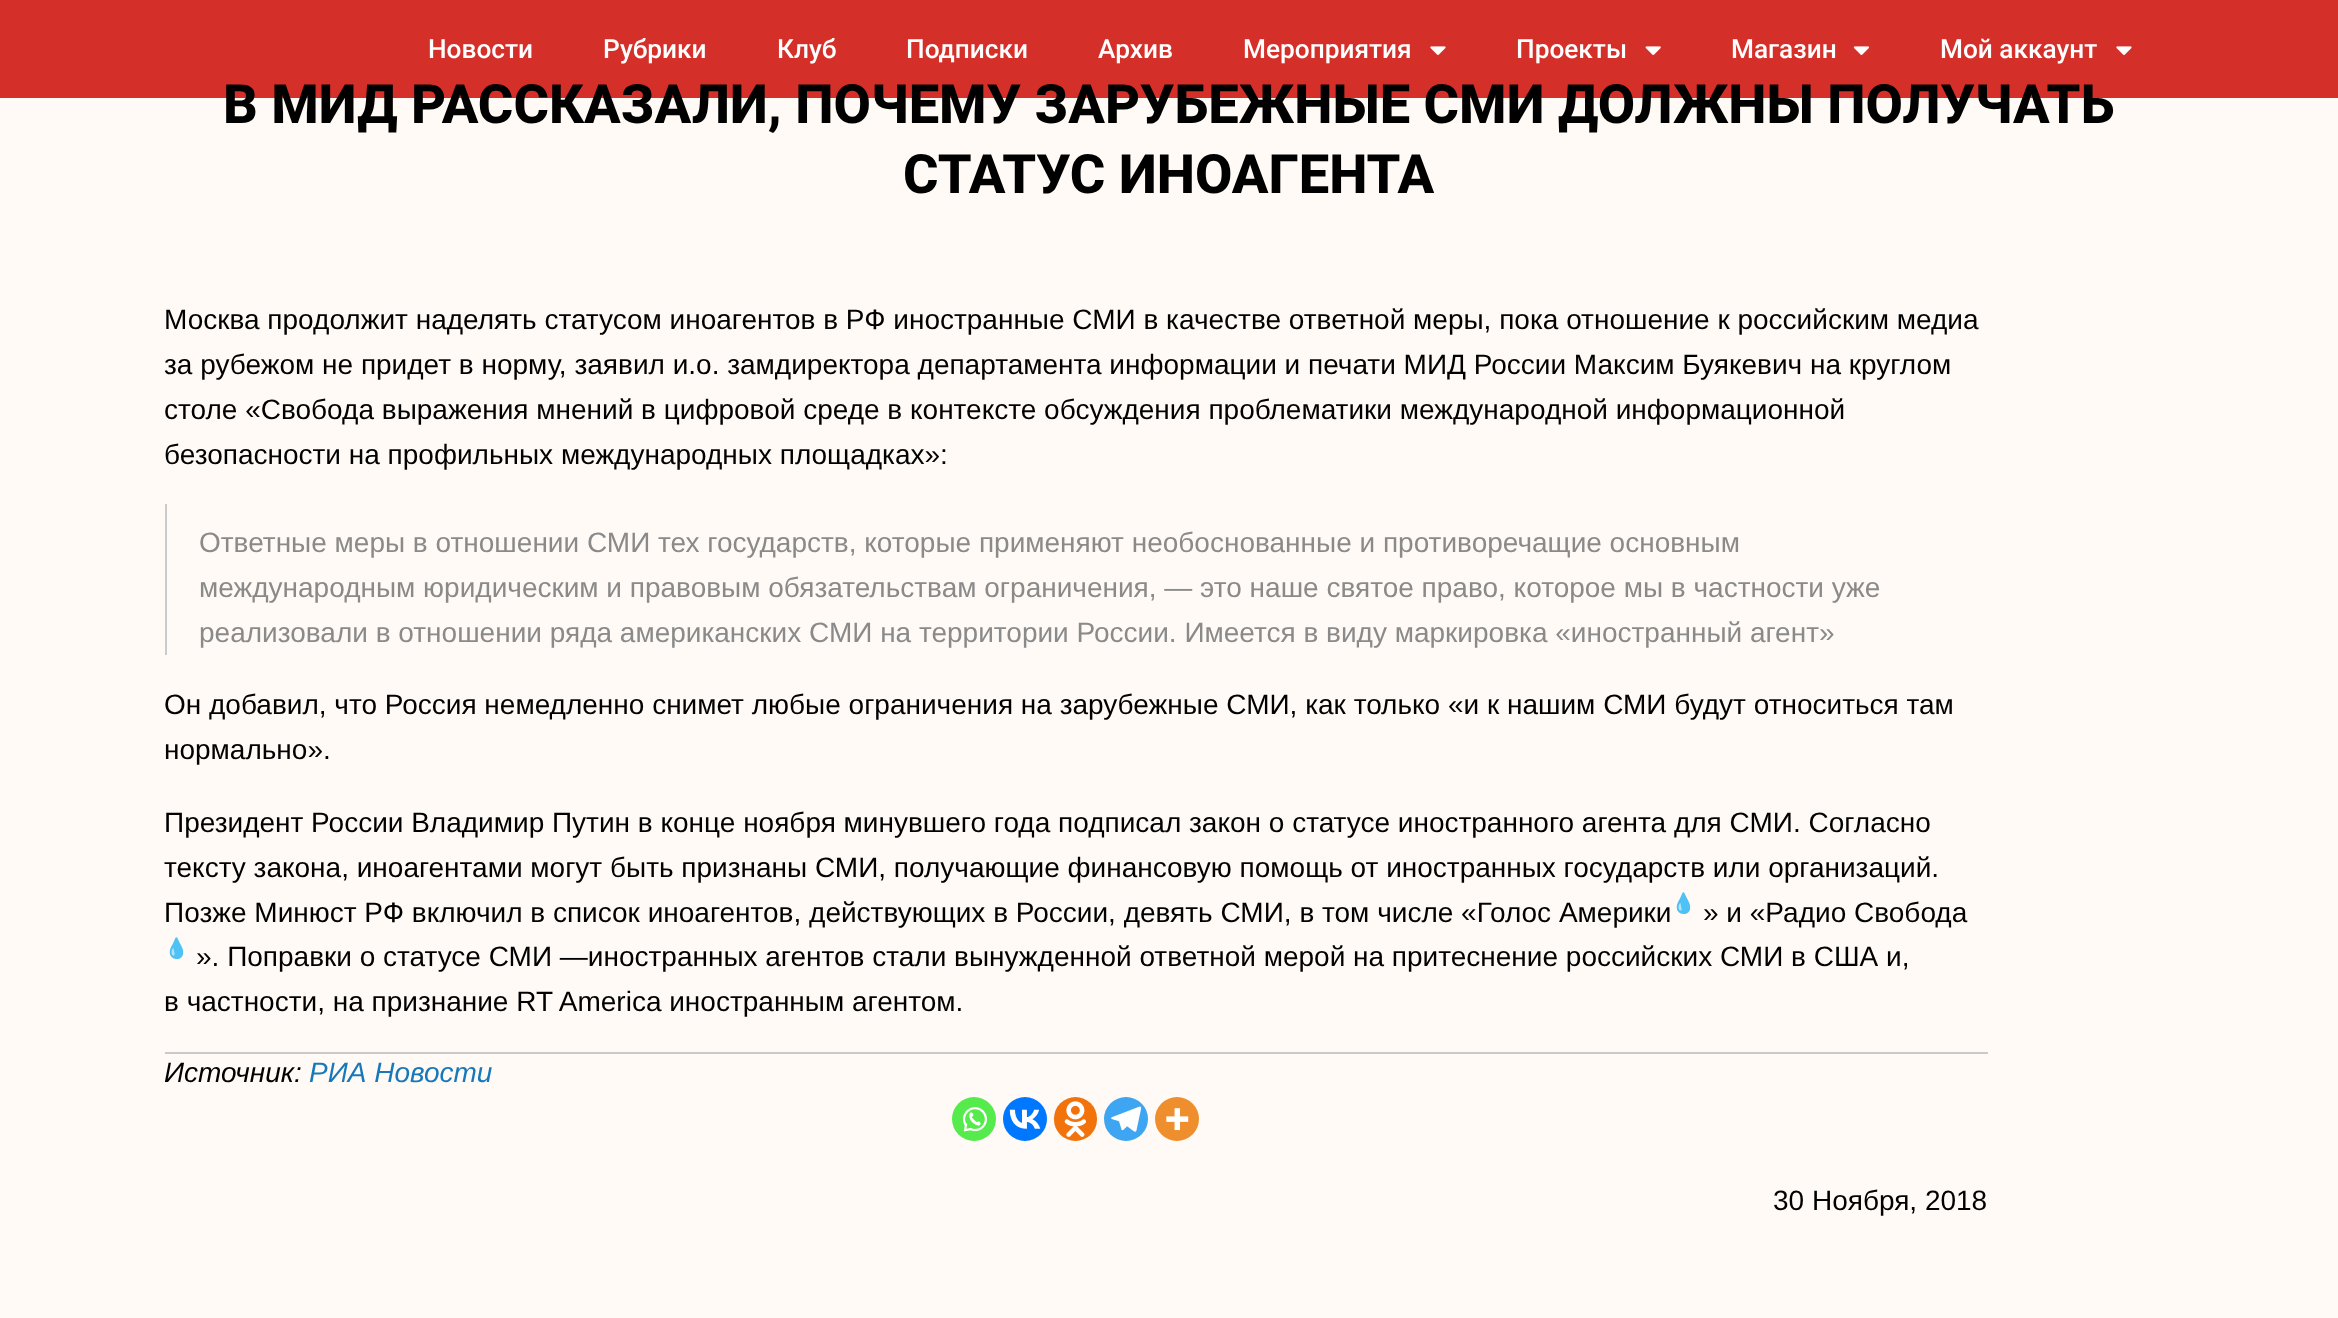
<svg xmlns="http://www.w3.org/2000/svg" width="2338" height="1318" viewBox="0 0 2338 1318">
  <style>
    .t1 { font: 500 26.25px Roboto; fill: #fff; }
    .t2 { font: 800 54.25px Roboto; fill: #000; }
    .t3 { font: 28px Liberation Sans; fill: #000; }
    .t4 { font: 28px Liberation Sans; fill: #8a8a8a; }
    .t5 { font: 20px Noto Color Emoji; fill: #666462; }
    .t6 { font: italic 28px Liberation Sans; fill: #000; }
    .t7 { font: italic 28px Liberation Sans; fill: #1779ba; }
  </style>
  <rect width="100%" height="100%" fill="#fffaf5"/>
  <rect x="0" y="0" width="2338" height="98" fill="#d52f29"/>
  <text x="428" y="58" class="t1">Новости</text>
  <text x="603" y="58" class="t1">Рубрики</text>
  <text x="777" y="58" class="t1">Клуб</text>
  <text x="906" y="58" class="t1">Подписки</text>
  <text x="1098" y="58" class="t1">Архив</text>
  <text x="1243" y="58" class="t1">Мероприятия</text>
  <image x="1430" y="46" width="16" height="9" href="images/1.png"/>
  <text x="1516" y="58" class="t1">Проекты</text>
  <image x="1645" y="46" width="16" height="9" href="images/2.png"/>
  <text x="1731" y="58" class="t1">Магазин</text>
  <image x="1853" y="46" width="16" height="9" href="images/3.png"/>
  <text x="1940" y="58" class="t1">Мой аккаунт</text>
  <image x="2116" y="46" width="16" height="9" href="images/1.png"/>
  <text x="223" y="123" class="t2">В МИД РАССКАЗАЛИ, ПОЧЕМУ ЗАРУБЕЖНЫЕ СМИ ДОЛЖНЫ ПОЛУЧАТЬ</text>
  <text x="903" y="193" class="t2">СТАТУС ИНОАГЕНТА</text>
  <text x="164" y="329" class="t3">Москва продолжит наделять статусом иноагентов в РФ иностранные СМИ в качестве ответной меры, пока отношение к российским медиа</text>
  <text x="164" y="374" class="t3">за рубежом не придет в норму, заявил и.о. замдиректора департамента информации и печати МИД России Максим Буякевич на круглом</text>
  <text x="164" y="419" class="t3">столе «Свобода выражения мнений в цифровой среде в контексте обсуждения проблематики международной информационной</text>
  <text x="164" y="464" class="t3">безопасности на профильных международных площадках»:</text>
  <rect x="165" y="504" width="2" height="151" fill="#cacaca"/>
  <text x="199" y="552" class="t4">Ответные меры в отношении СМИ тех государств, которые применяют необоснованные и противоречащие основным</text>
  <text x="199" y="597" class="t4">международным юридическим и правовым обязательствам ограничения, — это наше святое право, которое мы в частности уже</text>
  <text x="199" y="642" class="t4">реализовали в отношении ряда американских СМИ на территории России. Имеется в виду маркировка «иностранный агент»</text>
  <text x="164" y="714" class="t3">Он добавил, что Россия немедленно снимет любые ограничения на зарубежные СМИ, как только «и к нашим СМИ будут относиться там</text>
  <text x="164" y="759" class="t3">нормально».</text>
  <text x="164" y="832" class="t3">Президент России Владимир Путин в конце ноября минувшего года подписал закон о статусе иностранного агента для СМИ. Согласно</text>
  <text x="164" y="877" class="t3">тексту закона, иноагентами могут быть признаны СМИ, получающие финансовую помощь от иностранных государств или организаций.</text>
  <text x="1671" y="910" class="t5">💧</text>
  <text x="1703" y="922" class="t3">» и «Радио Свобода</text>
  <text x="164" y="955" class="t5">💧</text>
  <text x="196" y="966" class="t3">». Поправки о статусе СМИ —иностранных агентов стали вынужденной ответной мерой на притеснение российских СМИ в США и,</text>
  <text x="164" y="1011" class="t3">в частности, на признание RT America иностранным агентом.</text>
  <text x="164" y="922" class="t3">Позже Минюст РФ включил в список иноагентов, действующих в России, девять СМИ, в том числе «Голос Америки</text>
  <rect x="165" y="1052" width="1823" height="2" fill="#cacaca"/>
  <text x="164" y="1082" class="t6">Источник:</text>
  <text x="309" y="1082" class="t7">РИА Новости</text>
  <circle cx="974" cy="1119" r="22" fill="#55eb4c"/>
  <image x="962" y="1107" width="25" height="25" href="images/4.png"/>
  <circle cx="1025" cy="1119" r="22" fill="#07f"/>
  <image x="1009" y="1109" width="32" height="20" href="images/5.png"/>
  <rect x="1054" y="1097" width="43" height="44" rx="21.5" fill="#f2720c"/>
  <image x="1064" y="1101" width="22" height="36" href="images/6.png"/>
  <circle cx="1126" cy="1119" r="22" fill="#3da5f1"/>
  <image x="1111" y="1106" width="31" height="26" href="images/7.png"/>
  <circle cx="1177" cy="1119" r="22" fill="#ee8e2d"/>
  <image x="1166" y="1108" width="23" height="23" href="images/8.png"/>
  <text x="1773" y="1210" class="t3">30 Ноября, 2018</text>
</svg>
